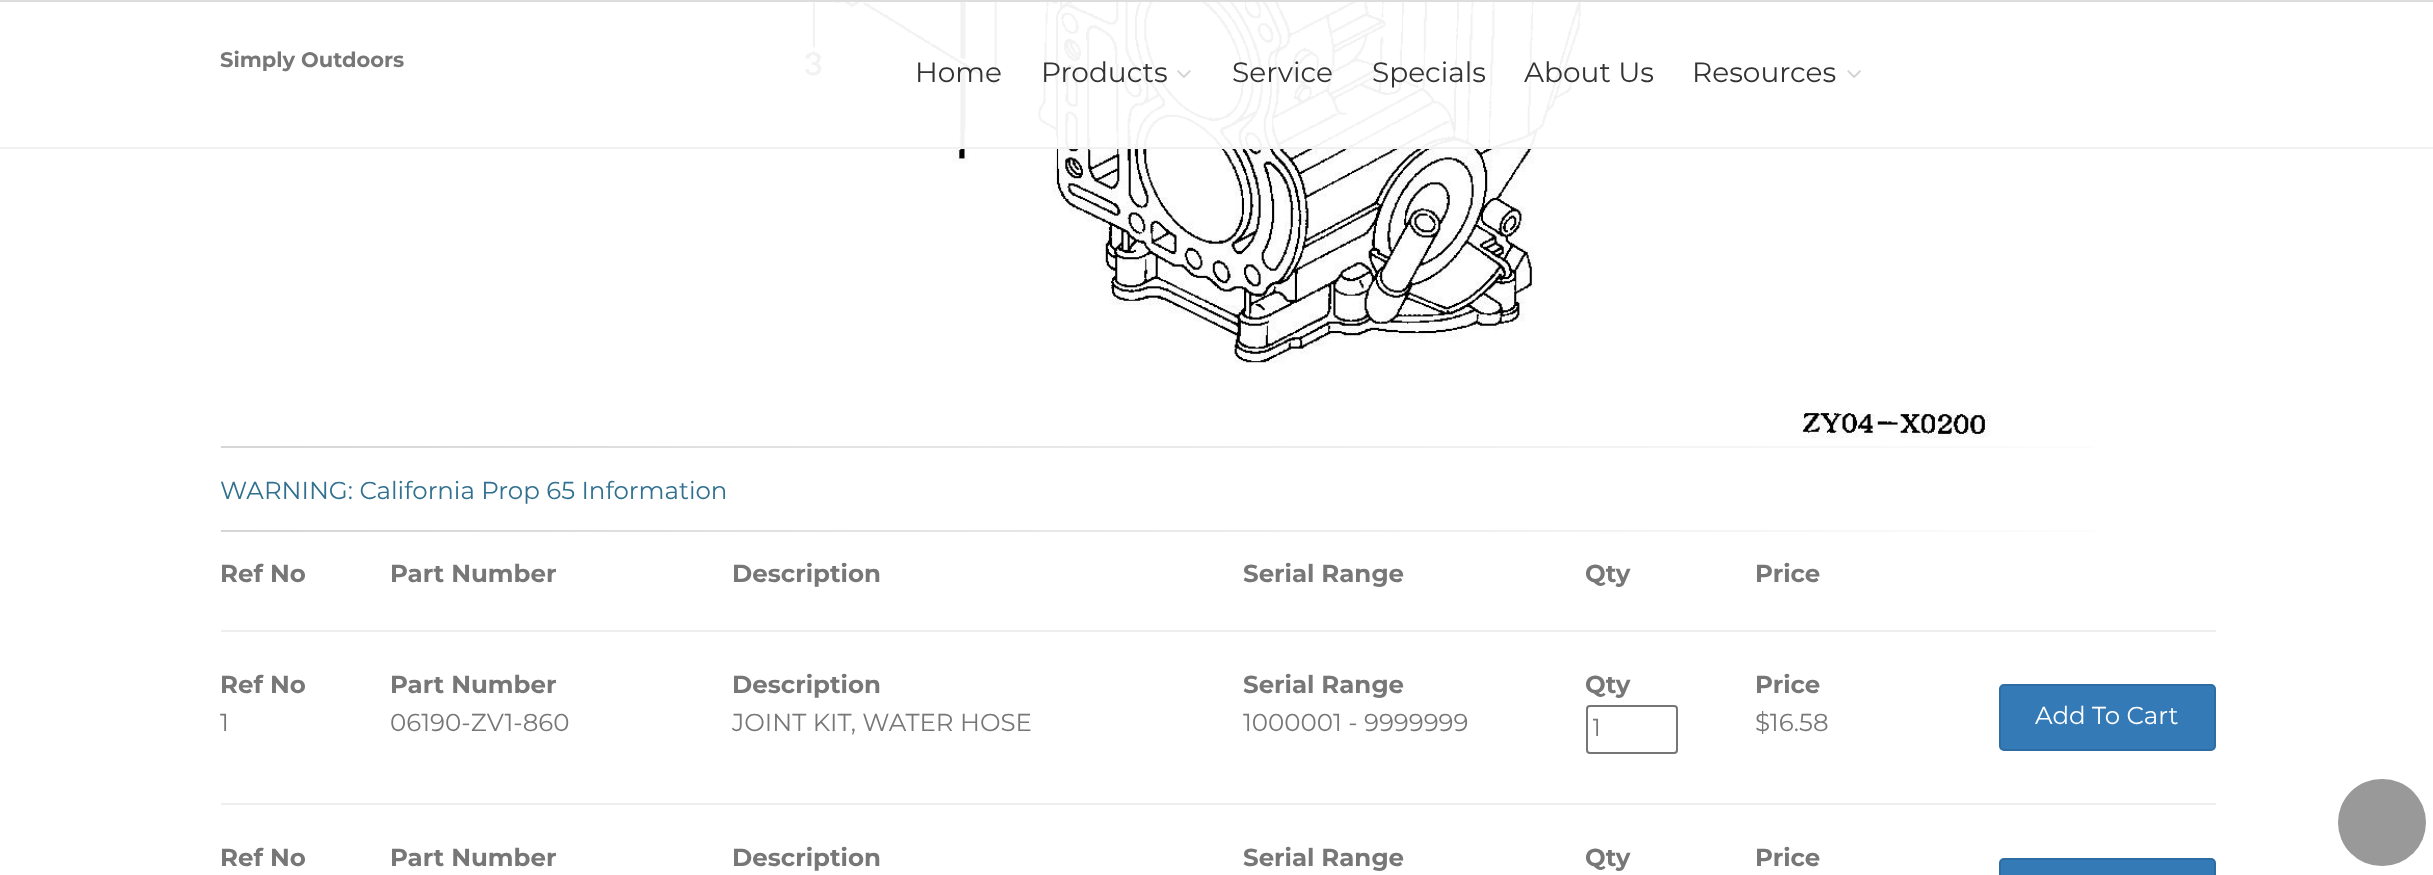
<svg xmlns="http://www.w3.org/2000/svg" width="2433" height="875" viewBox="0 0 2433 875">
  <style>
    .t1 { font: bold 21px Montserrat; fill: #777; }
    .t2 { font: 28px Montserrat; fill: #333; }
    .t3 { font: 24.5px Montserrat; fill: #31708f; }
    .t4 { font: bold 24.5px Montserrat; fill: #777; }
    .t5 { font: 24.5px Montserrat; fill: #777; }
    .t6 { font: 24.5px Montserrat; fill: #fff; }
  </style>
  <defs>
    <linearGradient id="g1" gradientUnits="userSpaceOnUse" x1="221" y1="447" x2="2216" y2="447"><stop offset="0" stop-color="#d6d6d6"/><stop offset="1" stop-color="#fff"/></linearGradient>
    <linearGradient id="g2" gradientUnits="userSpaceOnUse" x1="221" y1="531" x2="2216" y2="531"><stop offset="0" stop-color="#d6d6d6"/><stop offset="1" stop-color="#fff"/></linearGradient>
    <clipPath id="clip1"><rect x="1593" y="711" width="78" height="38"/></clipPath>
  </defs>
  <rect width="100%" height="100%" fill="#fff"/>
  <image x="802" y="2" width="1189" height="436" href="images/3.png"/>
  <rect x="802" y="2" width="782" height="145" fill="#fffffff2"/>
  <rect x="0" y="0" width="2433" height="2" fill="#ddd"/>
  <rect x="0" y="147" width="2433" height="2" fill="#f1f1f1"/>
  <text x="220" y="67" class="t1">Simply Outdoors</text>
  <text x="915" y="82" class="t2">Home</text>
  <text x="1041" y="82" class="t2">Products</text>
  <image x="1177" y="70" width="14" height="8" href="images/1.png"/>
  <text x="1232" y="82" class="t2">Service</text>
  <text x="1372" y="82" class="t2">Specials</text>
  <text x="1524" y="82" class="t2">About Us</text>
  <text x="1692" y="82" class="t2">Resources</text>
  <image x="1847" y="70" width="14" height="8" href="images/2.png"/>
  <rect x="221" y="446" width="1873" height="2" fill="url(#g1)"/>
  <text x="220" y="499" class="t3">WARNING: California Prop 65 Information</text>
  <rect x="221" y="530" width="1873" height="2" fill="url(#g2)"/>
  <text x="220" y="582" class="t4">Ref No</text>
  <text x="390" y="582" class="t4">Part Number</text>
  <text x="732" y="582" class="t4">Description</text>
  <text x="1243" y="582" class="t4">Serial Range</text>
  <text x="1585" y="582" class="t4">Qty</text>
  <text x="1755" y="582" class="t4">Price</text>
  <rect x="221" y="630" width="1995" height="2" fill="#eee"/>
  <text x="220" y="693" class="t4">Ref No</text>
  <text x="220" y="731" class="t5">1</text>
  <text x="390" y="693" class="t4">Part Number</text>
  <text x="390" y="731" class="t5">06190-ZV1-860</text>
  <text x="732" y="693" class="t4">Description</text>
  <text x="732" y="731" class="t5">JOINT KIT, WATER HOSE</text>
  <text x="1243" y="693" class="t4">Serial Range</text>
  <text x="1243" y="731" class="t5">1000001 - 9999999</text>
  <text x="1585" y="693" class="t4">Qty</text>
  <rect x="1587" y="706" width="90" height="47" rx="3" fill="none" stroke="#767676" stroke-width="2"/>
  <g clip-path="url(#clip1)">
    <text x="1592" y="736" class="t5">1</text>
  </g>
  <text x="1755" y="693" class="t4">Price</text>
  <text x="1755" y="731" class="t5">$16.58</text>
  <rect x="2000" y="685" width="215" height="65" rx="4" fill="#337ab7" stroke="#2e6da4" stroke-width="2"/>
  <text x="2035" y="724" class="t6">Add To Cart</text>
  <rect x="221" y="803" width="1995" height="2" fill="#eee"/>
  <text x="220" y="866" class="t4">Ref No</text>
  <text x="390" y="866" class="t4">Part Number</text>
  <text x="732" y="866" class="t4">Description</text>
  <text x="1243" y="866" class="t4">Serial Range</text>
  <text x="1585" y="866" class="t4">Qty</text>
  <text x="1755" y="866" class="t4">Price</text>
  <rect x="2000" y="859" width="215" height="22" rx="4" fill="#337ab7" stroke="#2e6da4" stroke-width="2"/>
  <rect x="2338" y="779" width="88" height="87" rx="43.5" fill="#999"/>
</svg>
